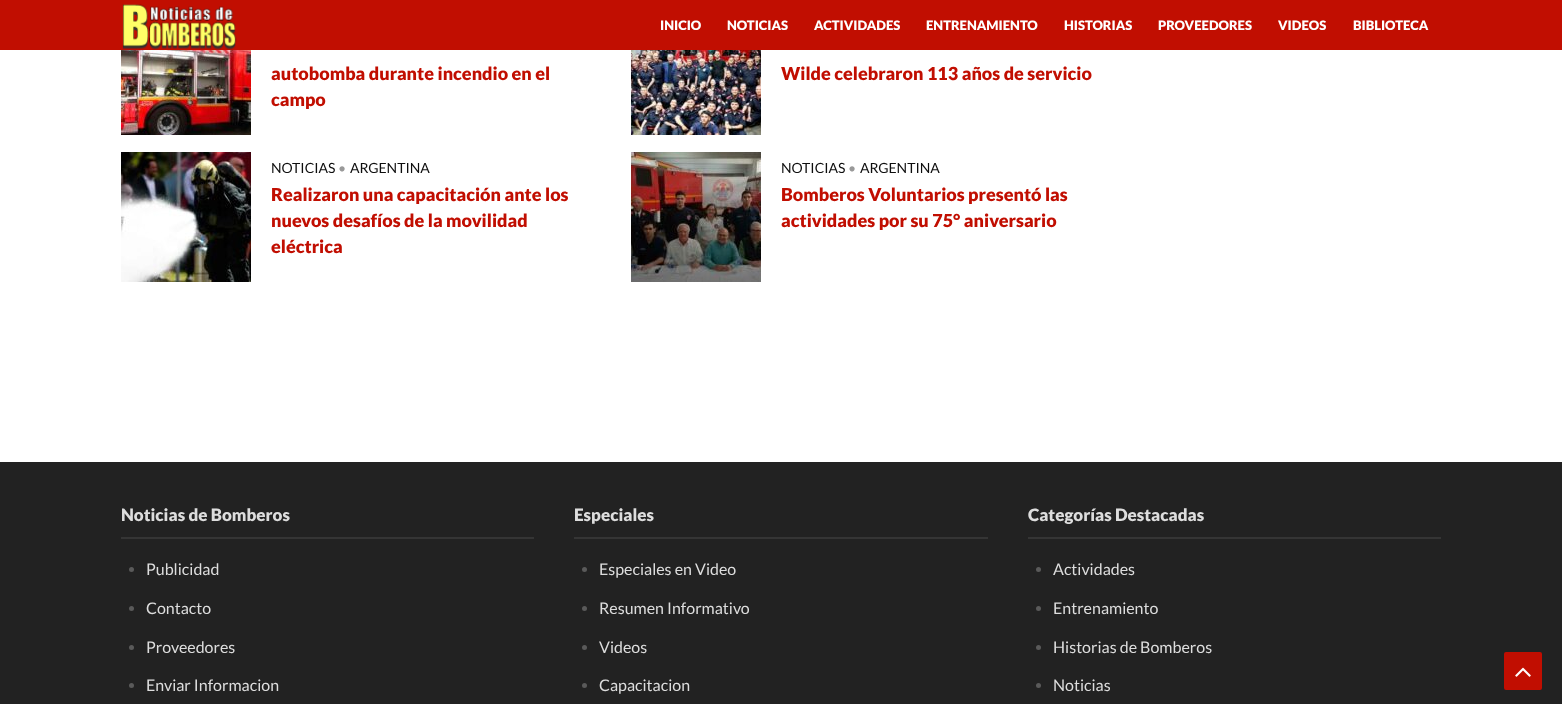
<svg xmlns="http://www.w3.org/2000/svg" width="1562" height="704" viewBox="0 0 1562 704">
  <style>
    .t1 { font: 900 13px Lato; fill: #fff; }
    .t2 { font: 900 18px Lato; fill: #c10e01; }
    .t3 { font: 14px Lato; fill: #0e0e0e; }
    .t4 { font: 14px Lato; fill: #999; }
    .t5 { font: 900 17px Lato; fill: #ddd; }
    .t6 { font: 16px Lato; fill: #ddd; }
  </style>
  <rect width="100%" height="100%" fill="#fff"/>
  <rect x="0" y="0" width="1562" height="50" fill="#c10e01"/>
  <image x="122" y="4" width="115" height="46" href="images/1.png"/>
  <text x="660" y="30" class="t1">INICIO</text>
  <text x="727" y="30" class="t1">NOTICIAS</text>
  <text x="814" y="30" class="t1">ACTIVIDADES</text>
  <text x="926" y="30" class="t1">ENTRENAMIENTO</text>
  <text x="1064" y="30" class="t1">HISTORIAS</text>
  <text x="1158" y="30" class="t1">PROVEEDORES</text>
  <text x="1278" y="30" class="t1">VIDEOS</text>
  <text x="1353" y="30" class="t1">BIBLIOTECA</text>
  <image x="121" y="50" width="130" height="85" href="images/2.png"/>
  <text x="271" y="80" class="t2">autobomba durante incendio en el</text>
  <text x="271" y="106" class="t2">campo</text>
  <image x="631" y="50" width="130" height="85" href="images/3.png"/>
  <text x="781" y="80" class="t2">Wilde celebraron 113 años de servicio</text>
  <image x="121" y="152" width="130" height="130" href="images/4.png"/>
  <text x="271" y="173" class="t3">NOTICIAS</text>
  <text x="338" y="173" class="t4">•</text>
  <text x="350" y="173" class="t3">ARGENTINA</text>
  <text x="271" y="201" class="t2">Realizaron una capacitación ante los</text>
  <text x="271" y="227" class="t2">nuevos desafíos de la movilidad</text>
  <text x="271" y="253" class="t2">eléctrica</text>
  <image x="631" y="152" width="130" height="130" href="images/5.png"/>
  <text x="781" y="173" class="t3">NOTICIAS</text>
  <text x="848" y="173" class="t4">•</text>
  <text x="860" y="173" class="t3">ARGENTINA</text>
  <text x="781" y="201" class="t2">Bomberos Voluntarios presentó las</text>
  <text x="781" y="227" class="t2">actividades por su 75° aniversario</text>
  <rect x="0" y="462" width="1562" height="242" fill="#222"/>
  <text x="121" y="521" class="t5">Noticias de Bomberos</text>
  <rect x="121" y="537" width="413" height="2" fill="#353535"/>
  <circle cx="131.5" cy="569.5" r="2.5" fill="#5a5a5a"/>
  <text x="146" y="575" class="t6">Publicidad</text>
  <circle cx="131.5" cy="608.5" r="2.5" fill="#5a5a5a"/>
  <text x="146" y="614" class="t6">Contacto</text>
  <circle cx="131.5" cy="647.5" r="2.5" fill="#5a5a5a"/>
  <text x="146" y="653" class="t6">Proveedores</text>
  <circle cx="131.5" cy="685.5" r="2.5" fill="#5a5a5a"/>
  <text x="146" y="691" class="t6">Enviar Informacion</text>
  <text x="574" y="521" class="t5">Especiales</text>
  <rect x="574" y="537" width="414" height="2" fill="#353535"/>
  <circle cx="584.5" cy="569.5" r="2.5" fill="#5a5a5a"/>
  <text x="599" y="575" class="t6">Especiales en Video</text>
  <circle cx="584.5" cy="608.5" r="2.5" fill="#5a5a5a"/>
  <text x="599" y="614" class="t6">Resumen Informativo</text>
  <circle cx="584.5" cy="647.5" r="2.5" fill="#5a5a5a"/>
  <text x="599" y="653" class="t6">Videos</text>
  <circle cx="584.5" cy="685.5" r="2.5" fill="#5a5a5a"/>
  <text x="599" y="691" class="t6">Capacitacion</text>
  <text x="1028" y="521" class="t5">Categorías Destacadas</text>
  <rect x="1028" y="537" width="413" height="2" fill="#353535"/>
  <circle cx="1038.5" cy="569.5" r="2.5" fill="#5a5a5a"/>
  <text x="1053" y="575" class="t6">Actividades</text>
  <circle cx="1038.5" cy="608.5" r="2.5" fill="#5a5a5a"/>
  <text x="1053" y="614" class="t6">Entrenamiento</text>
  <circle cx="1038.5" cy="647.5" r="2.5" fill="#5a5a5a"/>
  <text x="1053" y="653" class="t6">Historias de Bomberos</text>
  <circle cx="1038.5" cy="685.5" r="2.5" fill="#5a5a5a"/>
  <text x="1053" y="691" class="t6">Noticias</text>
  <rect x="1504" y="652" width="38" height="38" rx="2" fill="#c10e01"/>
  <image x="1515" y="667" width="16" height="10" href="images/6.png"/>
</svg>
